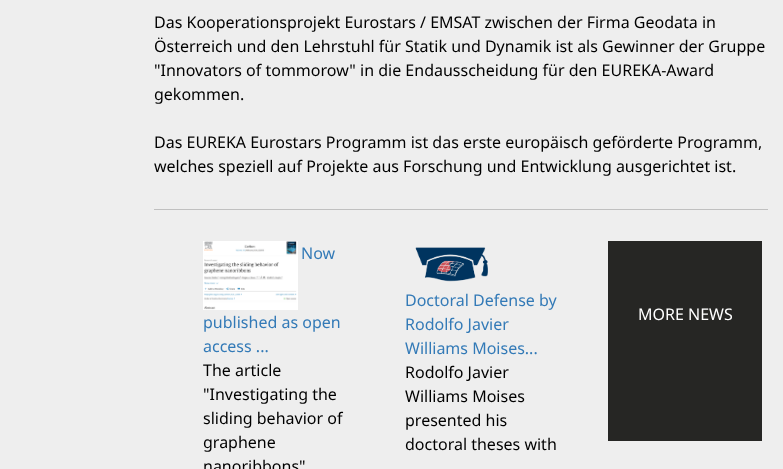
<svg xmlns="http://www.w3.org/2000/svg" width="783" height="469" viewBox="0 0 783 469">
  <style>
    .t1 { font: 16px Noto Sans; fill: #000; }
    .t2 { font: 16px Noto Sans; fill: #337ab7; }
    .t3 { font: 16px Noto Sans; fill: #fff; }
  </style>
  <rect width="100%" height="100%" fill="#eee"/>
  <text x="154" y="28" class="t1">Das Kooperationsprojekt Eurostars / EMSAT zwischen der Firma Geodata in</text>
  <text x="154" y="52" class="t1">Österreich und den Lehrstuhl für Statik und Dynamik ist als Gewinner der Gruppe</text>
  <text x="154" y="76" class="t1">"Innovators of tommorow" in die Endausscheidung für den EUREKA-Award</text>
  <text x="154" y="100" class="t1">gekommen.</text>
  <text x="154" y="148" class="t1">Das EUREKA Eurostars Programm ist das erste europäisch geförderte Programm,</text>
  <text x="154" y="172" class="t1">welches speziell auf Projekte aus Forschung und Entwicklung ausgerichtet ist.</text>
  <rect x="154" y="209" width="614" height="1" fill="#c0c0c0"/>
  <image x="203" y="241" width="95" height="69" href="images/1.png"/>
  <text x="301" y="259" class="t2">Now</text>
  <text x="203" y="328" class="t2">published as open</text>
  <text x="203" y="352" class="t2">access ...</text>
  <text x="203" y="376" class="t1">The article</text>
  <text x="203" y="400" class="t1">"Investigating the</text>
  <text x="203" y="424" class="t1">sliding behavior of</text>
  <text x="203" y="448" class="t1">graphene</text>
  <text x="203" y="472" class="t1">nanoribbons"</text>
  <image x="415" y="247" width="73" height="35" href="images/2.png"/>
  <text x="405" y="306" class="t2">Doctoral Defense by</text>
  <text x="405" y="330" class="t2">Rodolfo Javier</text>
  <text x="405" y="354" class="t2">Williams Moises...</text>
  <text x="405" y="378" class="t1">Rodolfo Javier</text>
  <text x="405" y="402" class="t1">Williams Moises</text>
  <text x="405" y="426" class="t1">presented his</text>
  <text x="405" y="450" class="t1">doctoral theses with</text>
  <rect x="608" y="241" width="154" height="200" fill="#262624"/>
  <text x="638" y="320" class="t3">MORE NEWS</text>
</svg>
